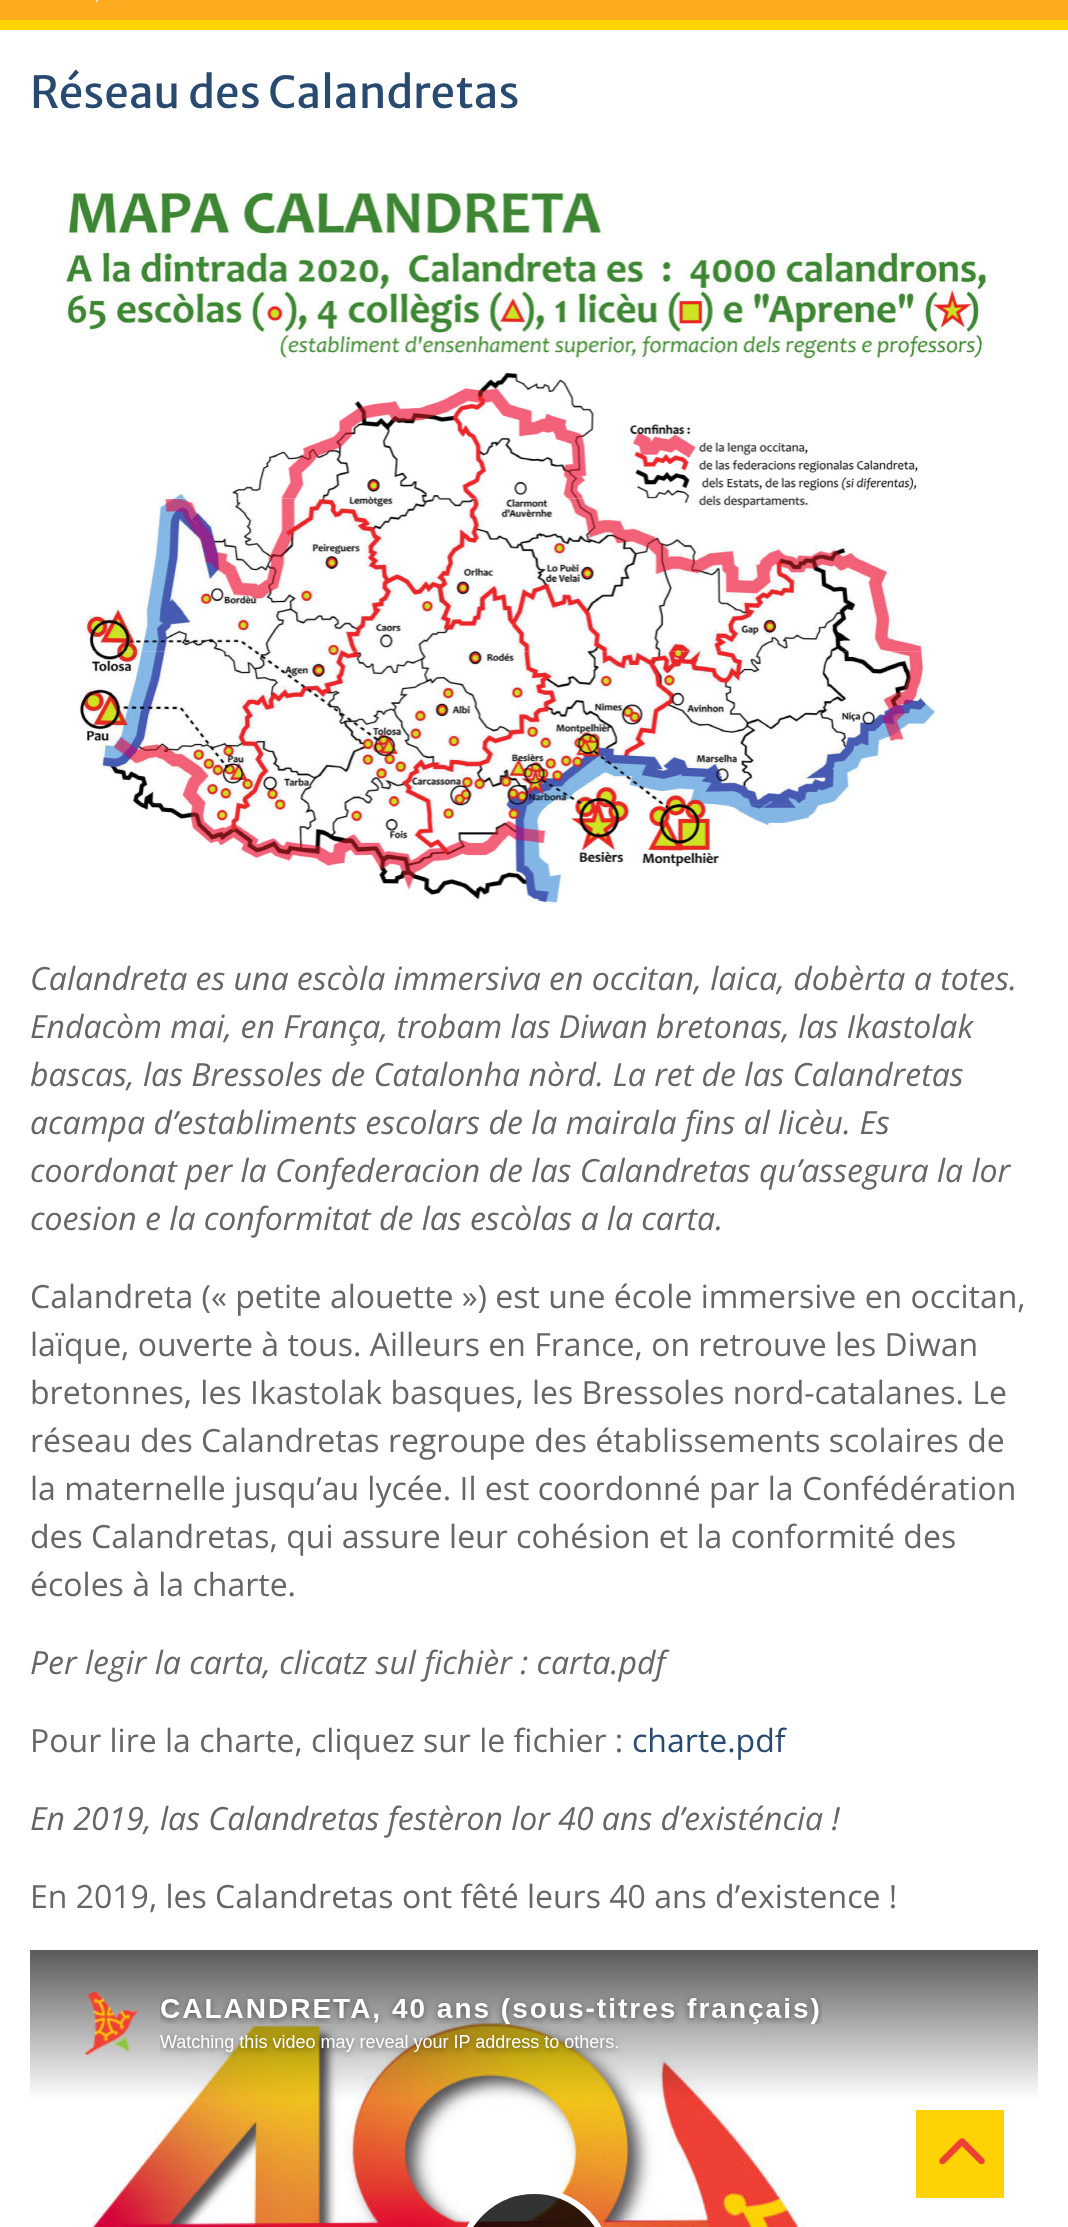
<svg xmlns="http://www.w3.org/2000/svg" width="1068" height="2227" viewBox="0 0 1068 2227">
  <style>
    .t1 { font: 44px Merriweather Sans; fill: #294a70; }
    .t2 { font: italic 32px Open Sans; fill: #666; }
    .t3 { font: 32px Open Sans; fill: #666; }
    .t4 { font: 32px Open Sans; fill: #294a70; }
  </style>
  <rect width="100%" height="100%" fill="#fff"/>
  <rect x="0" y="20" width="1068" height="10" fill="#ffd203"/>
  <rect x="0" y="0" width="1068" height="20" fill="#ffab1f"/>
  <rect x="96" y="0" width="2" height="2" fill="#ddd"/>
  <text x="30" y="108" class="t1">Réseau des Calandretas</text>
  <image x="62" y="192" width="929" height="712" href="images/1.png"/>
  <text x="30" y="990" class="t2">Calandreta es una escòla immersiva en occitan, laica, dobèrta a totes.</text>
  <text x="30" y="1038" class="t2">Endacòm mai, en França, trobam las Diwan bretonas, las Ikastolak</text>
  <text x="30" y="1086" class="t2">bascas, las Bressoles de Catalonha nòrd. La ret de las Calandretas</text>
  <text x="30" y="1134" class="t2">acampa d’establiments escolars de la mairala fins al licèu. Es</text>
  <text x="30" y="1182" class="t2">coordonat per la Confederacion de las Calandretas qu’assegura la lor</text>
  <text x="30" y="1230" class="t2">coesion e la conformitat de las escòlas a la carta.</text>
  <text x="30" y="1308" class="t3">Calandreta (« petite alouette ») est une école immersive en occitan,</text>
  <text x="30" y="1356" class="t3">laïque, ouverte à tous. Ailleurs en France, on retrouve les Diwan</text>
  <text x="30" y="1404" class="t3">bretonnes, les Ikastolak basques, les Bressoles nord-catalanes. Le</text>
  <text x="30" y="1452" class="t3">réseau des Calandretas regroupe des établissements scolaires de</text>
  <text x="30" y="1500" class="t3">la maternelle jusqu’au lycée. Il est coordonné par la Confédération</text>
  <text x="30" y="1548" class="t3">des Calandretas, qui assure leur cohésion et la conformité des</text>
  <text x="30" y="1596" class="t3">écoles à la charte.</text>
  <text x="30" y="1674" class="t2">Per legir la carta, clicatz sul fichièr : carta.pdf</text>
  <text x="30" y="1752" class="t3">Pour lire la charte, cliquez sur le fichier :</text>
  <text x="632" y="1752" class="t4">charte.pdf</text>
  <text x="30" y="1830" class="t2">En 2019, las Calandretas festèron lor 40 ans d’existéncia !</text>
  <text x="30" y="1908" class="t3">En 2019, les Calandretas ont fêté leurs 40 ans d’existence !</text>
  <image x="30" y="1950" width="1008" height="277" href="images/2.png"/>
  <rect x="916" y="2110" width="88" height="88" fill="#ffd203"/>
  <image x="939" y="2138" width="46" height="27" href="images/3.png"/>
</svg>
